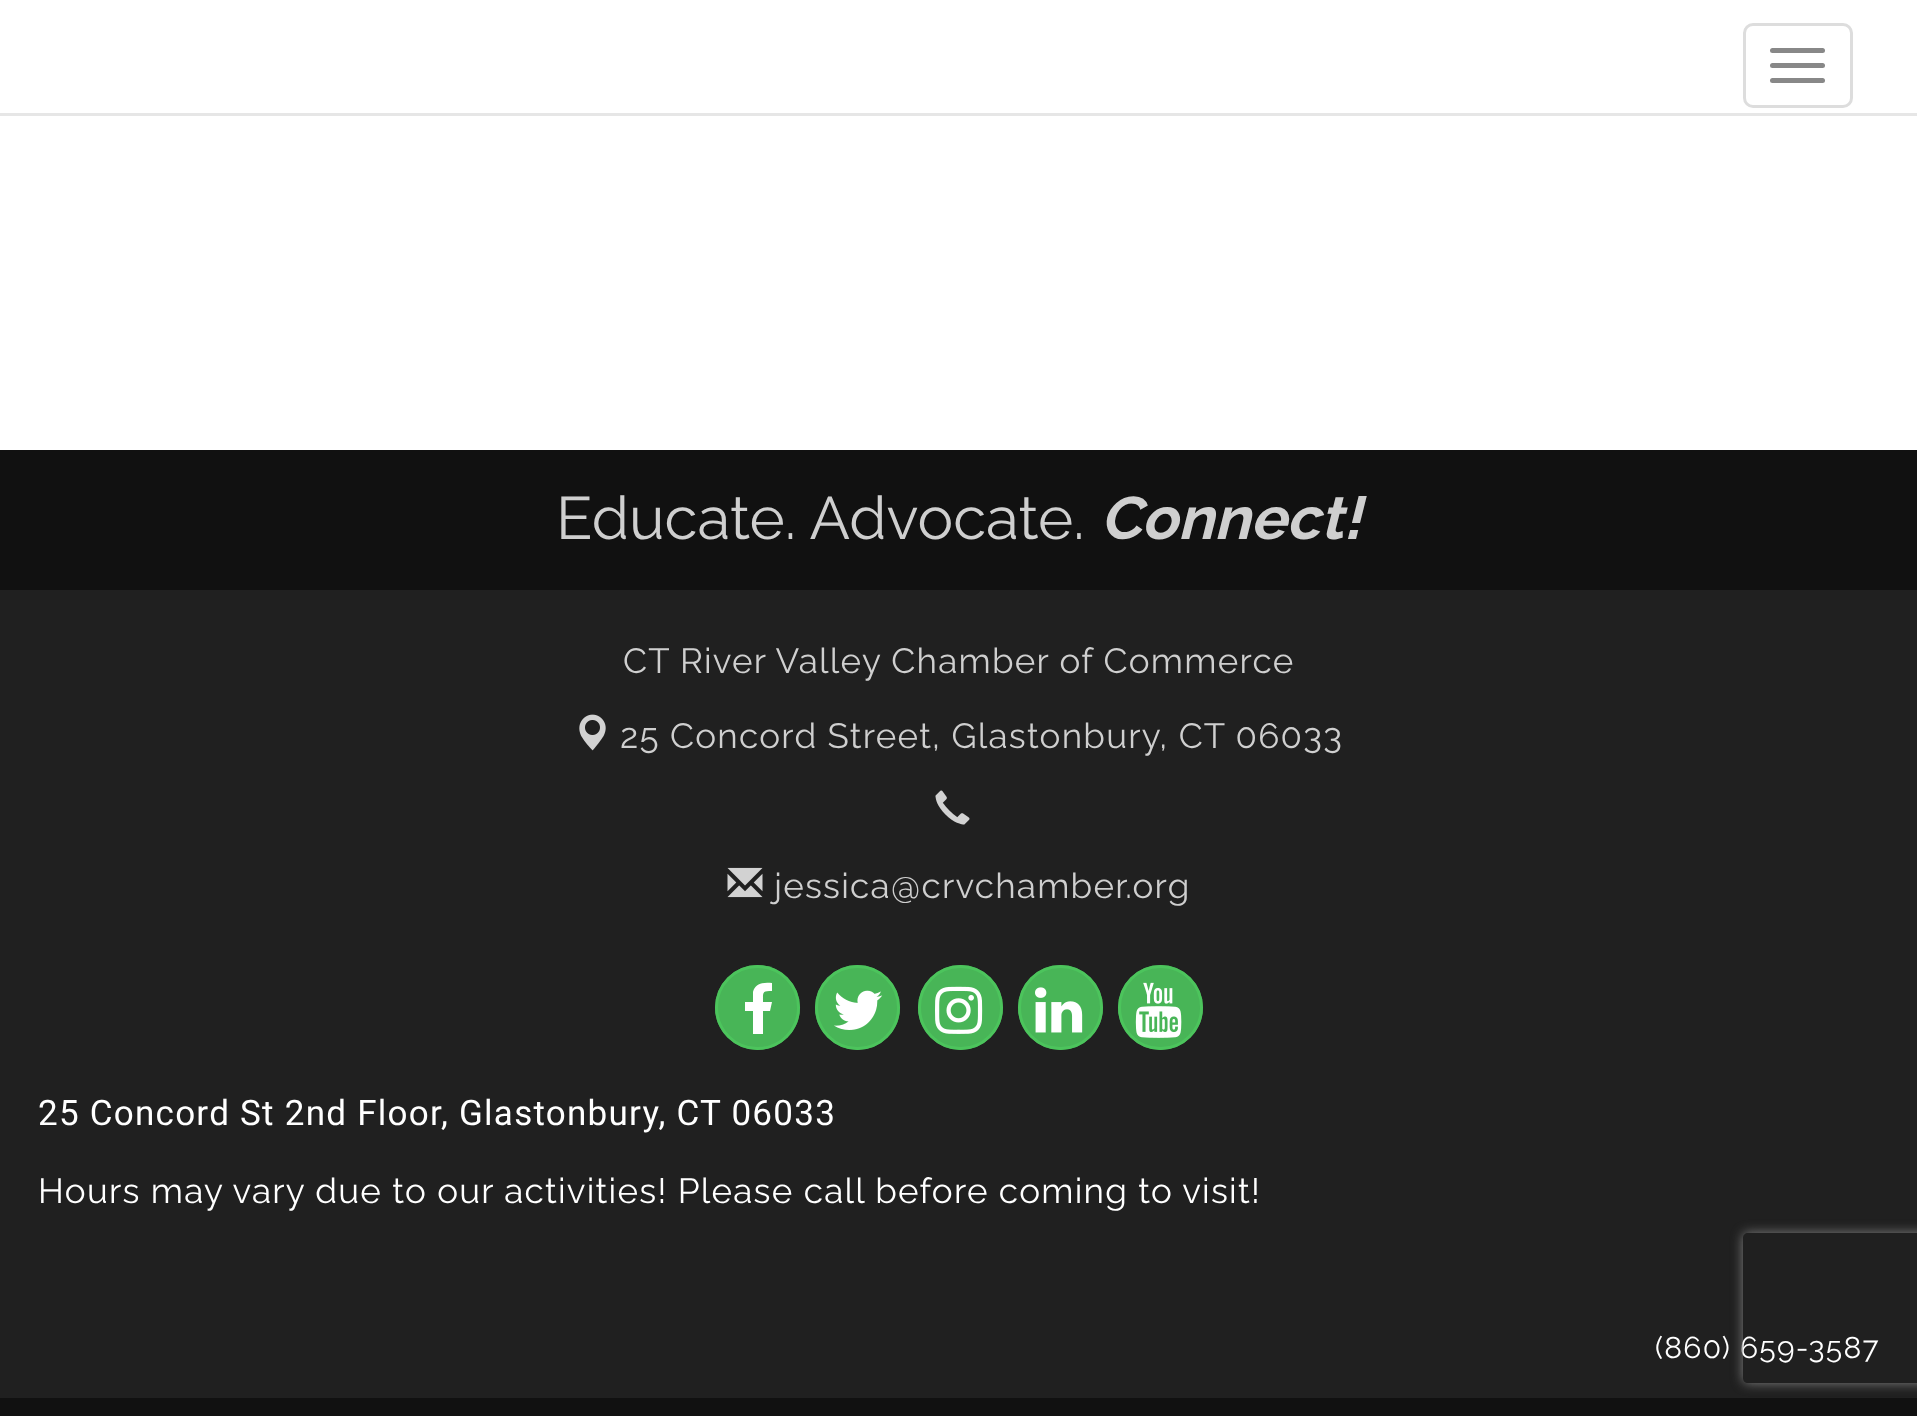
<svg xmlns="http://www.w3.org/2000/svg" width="1917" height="1416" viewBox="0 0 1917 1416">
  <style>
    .t1 { font: 60px Raleway; fill: #cfcfcf; }
    .t2 { font: italic bold 60px Raleway; fill: #cfcfcf; }
    .t3 { font: 35px Raleway; letter-spacing: 1.25px; fill: #cfcfcf; }
    .t4 { font: 35px Roboto; letter-spacing: 1.25px; fill: #fff; }
    .t5 { font: 35px Raleway; letter-spacing: 1.25px; fill: #fff; }
    .t6 { font: 30px Raleway; letter-spacing: 1.25px; fill: #fff; }
  </style>
  <defs>
    <clipPath id="clip1"><path d="M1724 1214H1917V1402H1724ZM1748 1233H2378C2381 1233 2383 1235 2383 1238V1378C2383 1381 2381 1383 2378 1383H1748C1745 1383 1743 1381 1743 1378V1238C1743 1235 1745 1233 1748 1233Z" clip-rule="evenodd"/></clipPath>
  </defs>
  <rect width="100%" height="100%" fill="#fff"/>
  <rect x="0" y="113" width="1917" height="3" fill="#e6e6e6"/>
  <rect x="1744.5" y="24.5" width="107" height="82" rx="8.5" fill="none" stroke="#ddd" stroke-width="3"/>
  <rect x="1770" y="48" width="55" height="5" rx="2.5" fill="#888"/>
  <rect x="1770" y="63" width="55" height="5" rx="2.5" fill="#888"/>
  <rect x="1770" y="78" width="55" height="5" rx="2.5" fill="#888"/>
  <rect x="0" y="450" width="1917" height="140" fill="#111"/>
  <text x="556" y="539" class="t1">Educate. Advocate.</text>
  <text x="1100" y="539" class="t2">Connect!</text>
  <rect x="0" y="590" width="1917" height="808" fill="#202020"/>
  <text x="623" y="673" class="t3">CT River Valley Chamber of Commerce</text>
  <image x="579" y="714" width="27" height="37" href="images/1.png"/>
  <text x="620" y="748" class="t3">25 Concord Street, Glastonbury, CT 06033</text>
  <image x="935" y="790" width="35" height="35" href="images/2.png"/>
  <image x="727" y="867" width="36" height="31" href="images/3.png"/>
  <text x="774" y="898" class="t3">jessica@crvchamber.org</text>
  <circle cx="757.5" cy="1007.5" r="42.5" fill="#48b557"/>
  <circle cx="757.5" cy="1007.5" r="41" fill="none" stroke="#4cc55de6" stroke-width="3"/>
  <path d="M772 983V991C762 991 763 992 763 1002H772L770 1011H763V1034H753V1011H745V1002H753V992C755 983 764 982 772 983Z" fill="#fff"/>
  <circle cx="857.5" cy="1007.5" r="42.5" fill="#48b557"/>
  <circle cx="857.5" cy="1007.5" r="41" fill="none" stroke="#4cc55de6" stroke-width="3"/>
  <image x="834" y="990" width="49" height="40" href="images/4.png"/>
  <circle cx="960.5" cy="1007.5" r="42.5" fill="#48b557"/>
  <circle cx="960.5" cy="1007.5" r="41" fill="none" stroke="#4cc55de6" stroke-width="3"/>
  <image x="935" y="986" width="48" height="48" href="images/5.png"/>
  <circle cx="1060.5" cy="1007.5" r="42.5" fill="#48b557"/>
  <circle cx="1060.5" cy="1007.5" r="41" fill="none" stroke="#4cc55de6" stroke-width="3"/>
  <image x="1035" y="987" width="48" height="46" href="images/6.png"/>
  <circle cx="1160.5" cy="1007.5" r="42.5" fill="#48b557"/>
  <circle cx="1160.5" cy="1007.5" r="41" fill="none" stroke="#4cc55de6" stroke-width="3"/>
  <image x="1135" y="982" width="47" height="56" href="images/7.png"/>
  <text x="38" y="1125" class="t4">25 Concord St 2nd Floor, Glastonbury, CT 06033</text>
  <text x="38" y="1203" class="t5">Hours may vary due to our activities! Please call before coming to visit!</text>
  <text x="1655" y="1358" class="t6">(860) 659-3587</text>
  <rect x="0" y="1398" width="1917" height="18" fill="#111"/>
  <g clip-path="url(#clip1)">
    <rect x="1743" y="1233" width="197" height="150" rx="5" fill="#808080" filter="blur(6px)"/>
  </g>
</svg>
